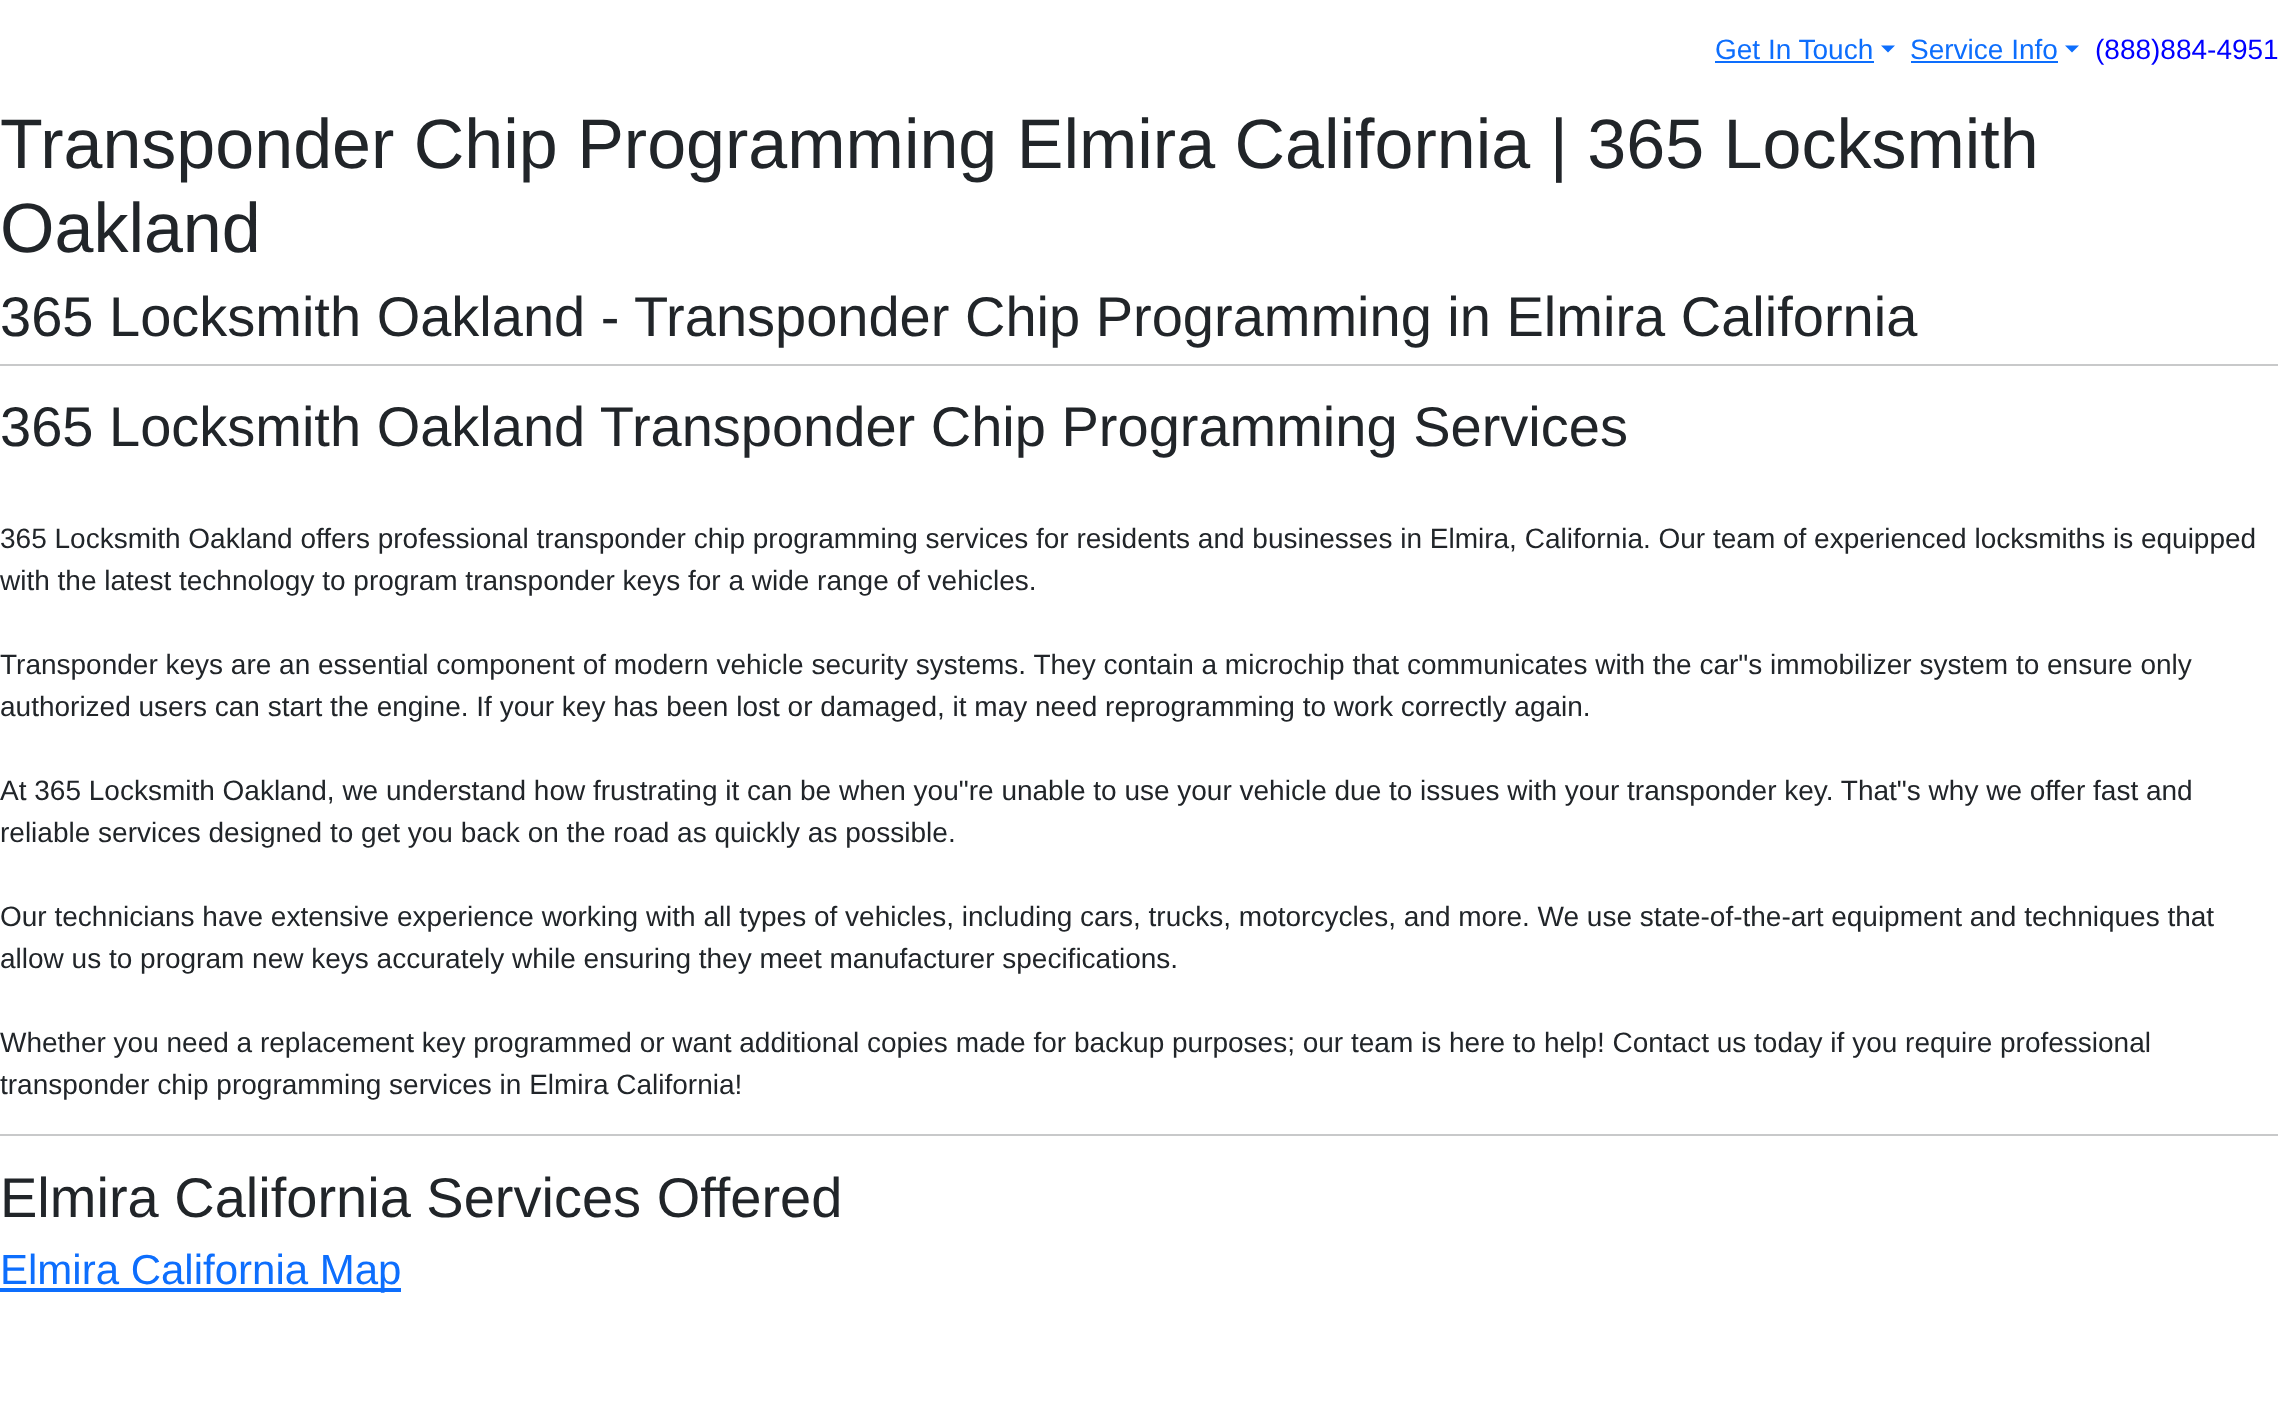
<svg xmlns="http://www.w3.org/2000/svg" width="2278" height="1426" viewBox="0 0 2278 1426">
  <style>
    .t1 { font: 28px Liberation Sans; fill: #0d6efd; }
    .t2 { font: 28px Liberation Sans; fill: #00f; }
    .t3 { font: 70px Liberation Sans; fill: #212529; }
    .t4 { font: 56px Liberation Sans; fill: #212529; }
    .t5 { font: 28px Liberation Sans; fill: #212529; }
    .t6 { font: 42px Liberation Sans; fill: #0d6efd; }
  </style>
  <rect width="100%" height="100%" fill="#fff"/>
  <text x="1715" y="59" class="t1">Get In Touch</text>
  <rect x="1715" y="61" width="159" height="2" fill="#0d6efd"/>
  <path d="M1881 45.5H1895L1888 52.5Z" fill="#0d6efd"/>
  <text x="1910" y="59" class="t1">Service Info</text>
  <rect x="1911" y="61" width="147" height="2" fill="#0d6efd"/>
  <path d="M2065 45.5H2079L2072 52.5Z" fill="#0d6efd"/>
  <text x="2095" y="59" class="t2">(888)884-4951</text>
  <text x="0" y="168" class="t3">Transponder Chip Programming Elmira California | 365 Locksmith</text>
  <text x="0" y="252" class="t3">Oakland</text>
  <text x="0" y="336" class="t4">365 Locksmith Oakland - Transponder Chip Programming in Elmira California</text>
  <rect x="0" y="364" width="2278" height="2" fill="#c8c9ca"/>
  <text x="0" y="446" class="t4">365 Locksmith Oakland Transponder Chip Programming Services</text>
  <text x="0" y="548" class="t5">365 Locksmith Oakland offers professional transponder chip programming services for residents and businesses in Elmira, California. Our team of experienced locksmiths is equipped</text>
  <text x="0" y="590" class="t5">with the latest technology to program transponder keys for a wide range of vehicles.</text>
  <text x="0" y="674" class="t5">Transponder keys are an essential component of modern vehicle security systems. They contain a microchip that communicates with the car"s immobilizer system to ensure only</text>
  <text x="0" y="716" class="t5">authorized users can start the engine. If your key has been lost or damaged, it may need reprogramming to work correctly again.</text>
  <text x="0" y="800" class="t5">At 365 Locksmith Oakland, we understand how frustrating it can be when you"re unable to use your vehicle due to issues with your transponder key. That"s why we offer fast and</text>
  <text x="0" y="842" class="t5">reliable services designed to get you back on the road as quickly as possible.</text>
  <text x="0" y="926" class="t5">Our technicians have extensive experience working with all types of vehicles, including cars, trucks, motorcycles, and more. We use state-of-the-art equipment and techniques that</text>
  <text x="0" y="968" class="t5">allow us to program new keys accurately while ensuring they meet manufacturer specifications.</text>
  <text x="0" y="1052" class="t5">Whether you need a replacement key programmed or want additional copies made for backup purposes; our team is here to help! Contact us today if you require professional</text>
  <text x="0" y="1094" class="t5">transponder chip programming services in Elmira California!</text>
  <rect x="0" y="1134" width="2278" height="2" fill="#c8c9ca"/>
  <text x="0" y="1217" class="t4">Elmira California Services Offered</text>
  <rect x="0" y="1288" width="401" height="4" fill="#0d6efd"/>
  <text x="0" y="1284" class="t6">Elmira California Map</text>
</svg>
